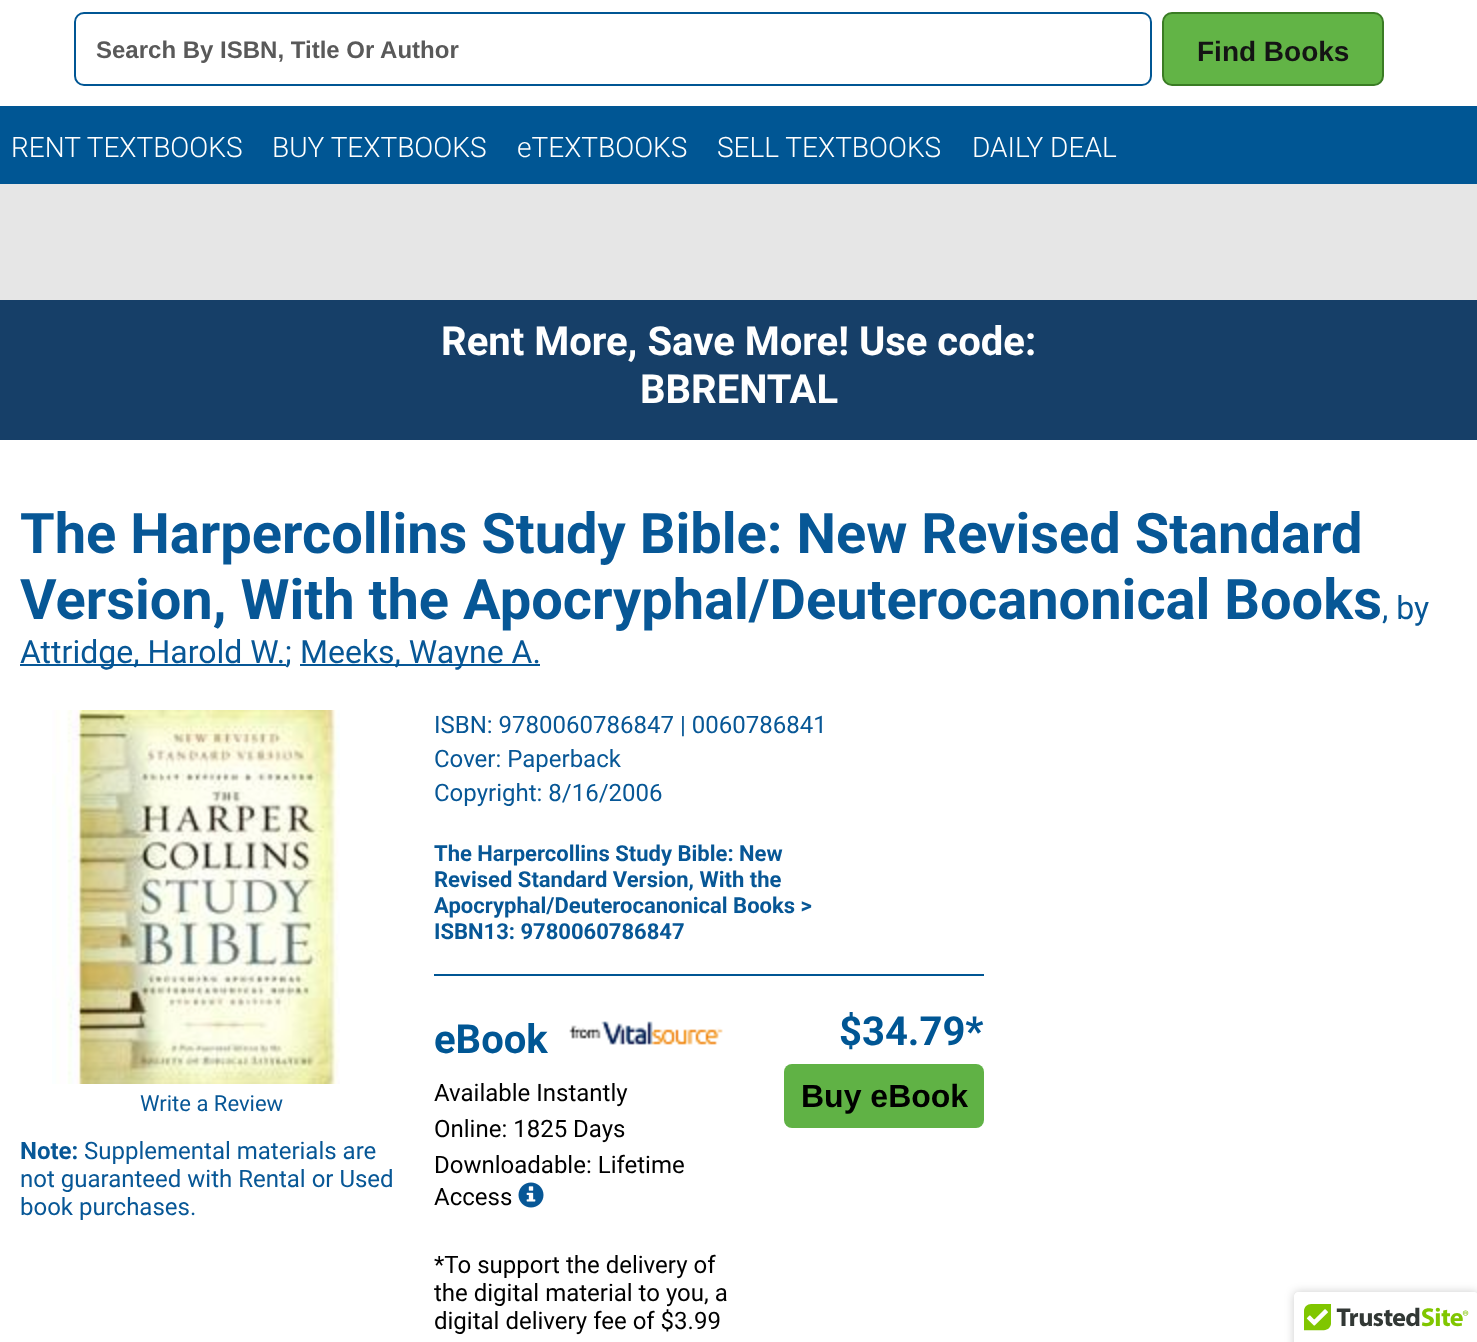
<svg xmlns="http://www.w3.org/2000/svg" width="1477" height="1342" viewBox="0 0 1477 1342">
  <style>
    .t1 { font: bold 24px Liberation Sans; fill: #595959; }
    .t2 { font: bold 28px Liberation Sans; fill: #141414; }
    .t3 { font: 300 28px Roboto; fill: #fff; }
    .t4 { font: bold 40px Roboto; fill: #fff; }
    .t5 { font: bold 56px Roboto; fill: #075796; }
    .t6 { font: 32px Roboto; fill: #075796; }
    .t7 { font: 22px Roboto; fill: #075796; }
    .t8 { font: bold 24px Roboto; fill: #075796; }
    .t9 { font: 24px Roboto; fill: #075796; }
    .t10 { font: bold 22px Roboto; fill: #075796; }
    .t11 { font: bold 40px Roboto; fill: #005694; }
    .t12 { font: 24px Roboto; fill: #000; }
    .t13 { font: bold 32px Liberation Sans; fill: #000; }
  </style>
  <rect width="100%" height="100%" fill="#fff"/>
  <rect x="75" y="13" width="1076" height="72" rx="9" fill="none" stroke="#005694" stroke-width="2"/>
  <text x="96" y="58" class="t1">Search By ISBN, Title Or Author</text>
  <rect x="1163" y="13" width="220" height="72" rx="9" fill="#62b446" stroke="#3a7c24" stroke-width="2"/>
  <text x="1197" y="61" class="t2">Find Books</text>
  <rect x="0" y="106" width="1477" height="78" fill="#005694"/>
  <text x="11" y="157" class="t3">RENT TEXTBOOKS</text>
  <text x="272" y="157" class="t3">BUY TEXTBOOKS</text>
  <text x="517" y="157" class="t3">eTEXTBOOKS</text>
  <text x="717" y="157" class="t3">SELL TEXTBOOKS</text>
  <text x="972" y="157" class="t3">DAILY DEAL</text>
  <rect x="0" y="184" width="1477" height="116" fill="#e6e6e6"/>
  <rect x="0" y="300" width="1477" height="140" fill="#163f68"/>
  <text x="441" y="355" class="t4">Rent More, Save More! Use code:</text>
  <text x="640" y="403" class="t4">BBRENTAL</text>
  <text x="20" y="553" class="t5">The Harpercollins Study Bible: New Revised Standard</text>
  <text x="20" y="619" class="t5">Version, With the Apocryphal/Deuterocanonical Books</text>
  <text x="1382" y="619" class="t6">, by</text>
  <rect x="20" y="664" width="266" height="2" fill="#075796"/>
  <text x="20" y="663" class="t6">Attridge, Harold W.;</text>
  <rect x="300" y="664" width="240" height="2" fill="#075796"/>
  <text x="300" y="663" class="t6">Meeks, Wayne A.</text>
  <image x="52" y="710" width="288" height="374" href="images/1.png"/>
  <text x="140" y="1111" class="t7">Write a Review</text>
  <text x="20" y="1159" class="t8">Note:</text>
  <text x="84" y="1159" class="t9">Supplemental materials are</text>
  <text x="20" y="1187" class="t9">not guaranteed with Rental or Used</text>
  <text x="20" y="1215" class="t9">book purchases.</text>
  <text x="434" y="733" class="t9">ISBN: 9780060786847 | 0060786841</text>
  <text x="434" y="767" class="t9">Cover: Paperback</text>
  <text x="434" y="801" class="t9">Copyright: 8/16/2006</text>
  <text x="434" y="861" class="t10">The Harpercollins Study Bible: New</text>
  <text x="434" y="887" class="t10">Revised Standard Version, With the</text>
  <text x="434" y="913" class="t10">Apocryphal/Deuterocanonical Books &gt;</text>
  <text x="434" y="939" class="t10">ISBN13: 9780060786847</text>
  <rect x="434" y="974" width="550" height="2" fill="#005694"/>
  <text x="434" y="1053" class="t11">eBook</text>
  <image x="569" y="1021" width="154" height="24" href="images/2.png"/>
  <text x="434" y="1101" class="t12">Available Instantly</text>
  <text x="434" y="1137" class="t12">Online: 1825 Days</text>
  <text x="434" y="1173" class="t12">Downloadable: Lifetime</text>
  <text x="434" y="1205" class="t12">Access</text>
  <image x="518" y="1182" width="26" height="26" href="images/3.png"/>
  <text x="434" y="1273" class="t12">*To support the delivery of</text>
  <text x="434" y="1301" class="t12">the digital material to you, a</text>
  <text x="434" y="1329" class="t12">digital delivery fee of $3.99</text>
  <text x="839" y="1045" class="t11">$34.79*</text>
  <rect x="784" y="1064" width="200" height="64" rx="8" fill="#60b245"/>
  <text x="801" y="1107" class="t13">Buy eBook</text>
  <rect x="1294" y="1292" width="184" height="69" rx="4" fill="#00000033" filter="blur(5px)"/>
  <path d="M1298 1292H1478V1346H1294V1296C1294 1294 1296 1292 1298 1292Z" fill="#fff"/>
  <image x="1294" y="1292" width="183" height="39" href="images/4.png"/>
</svg>
